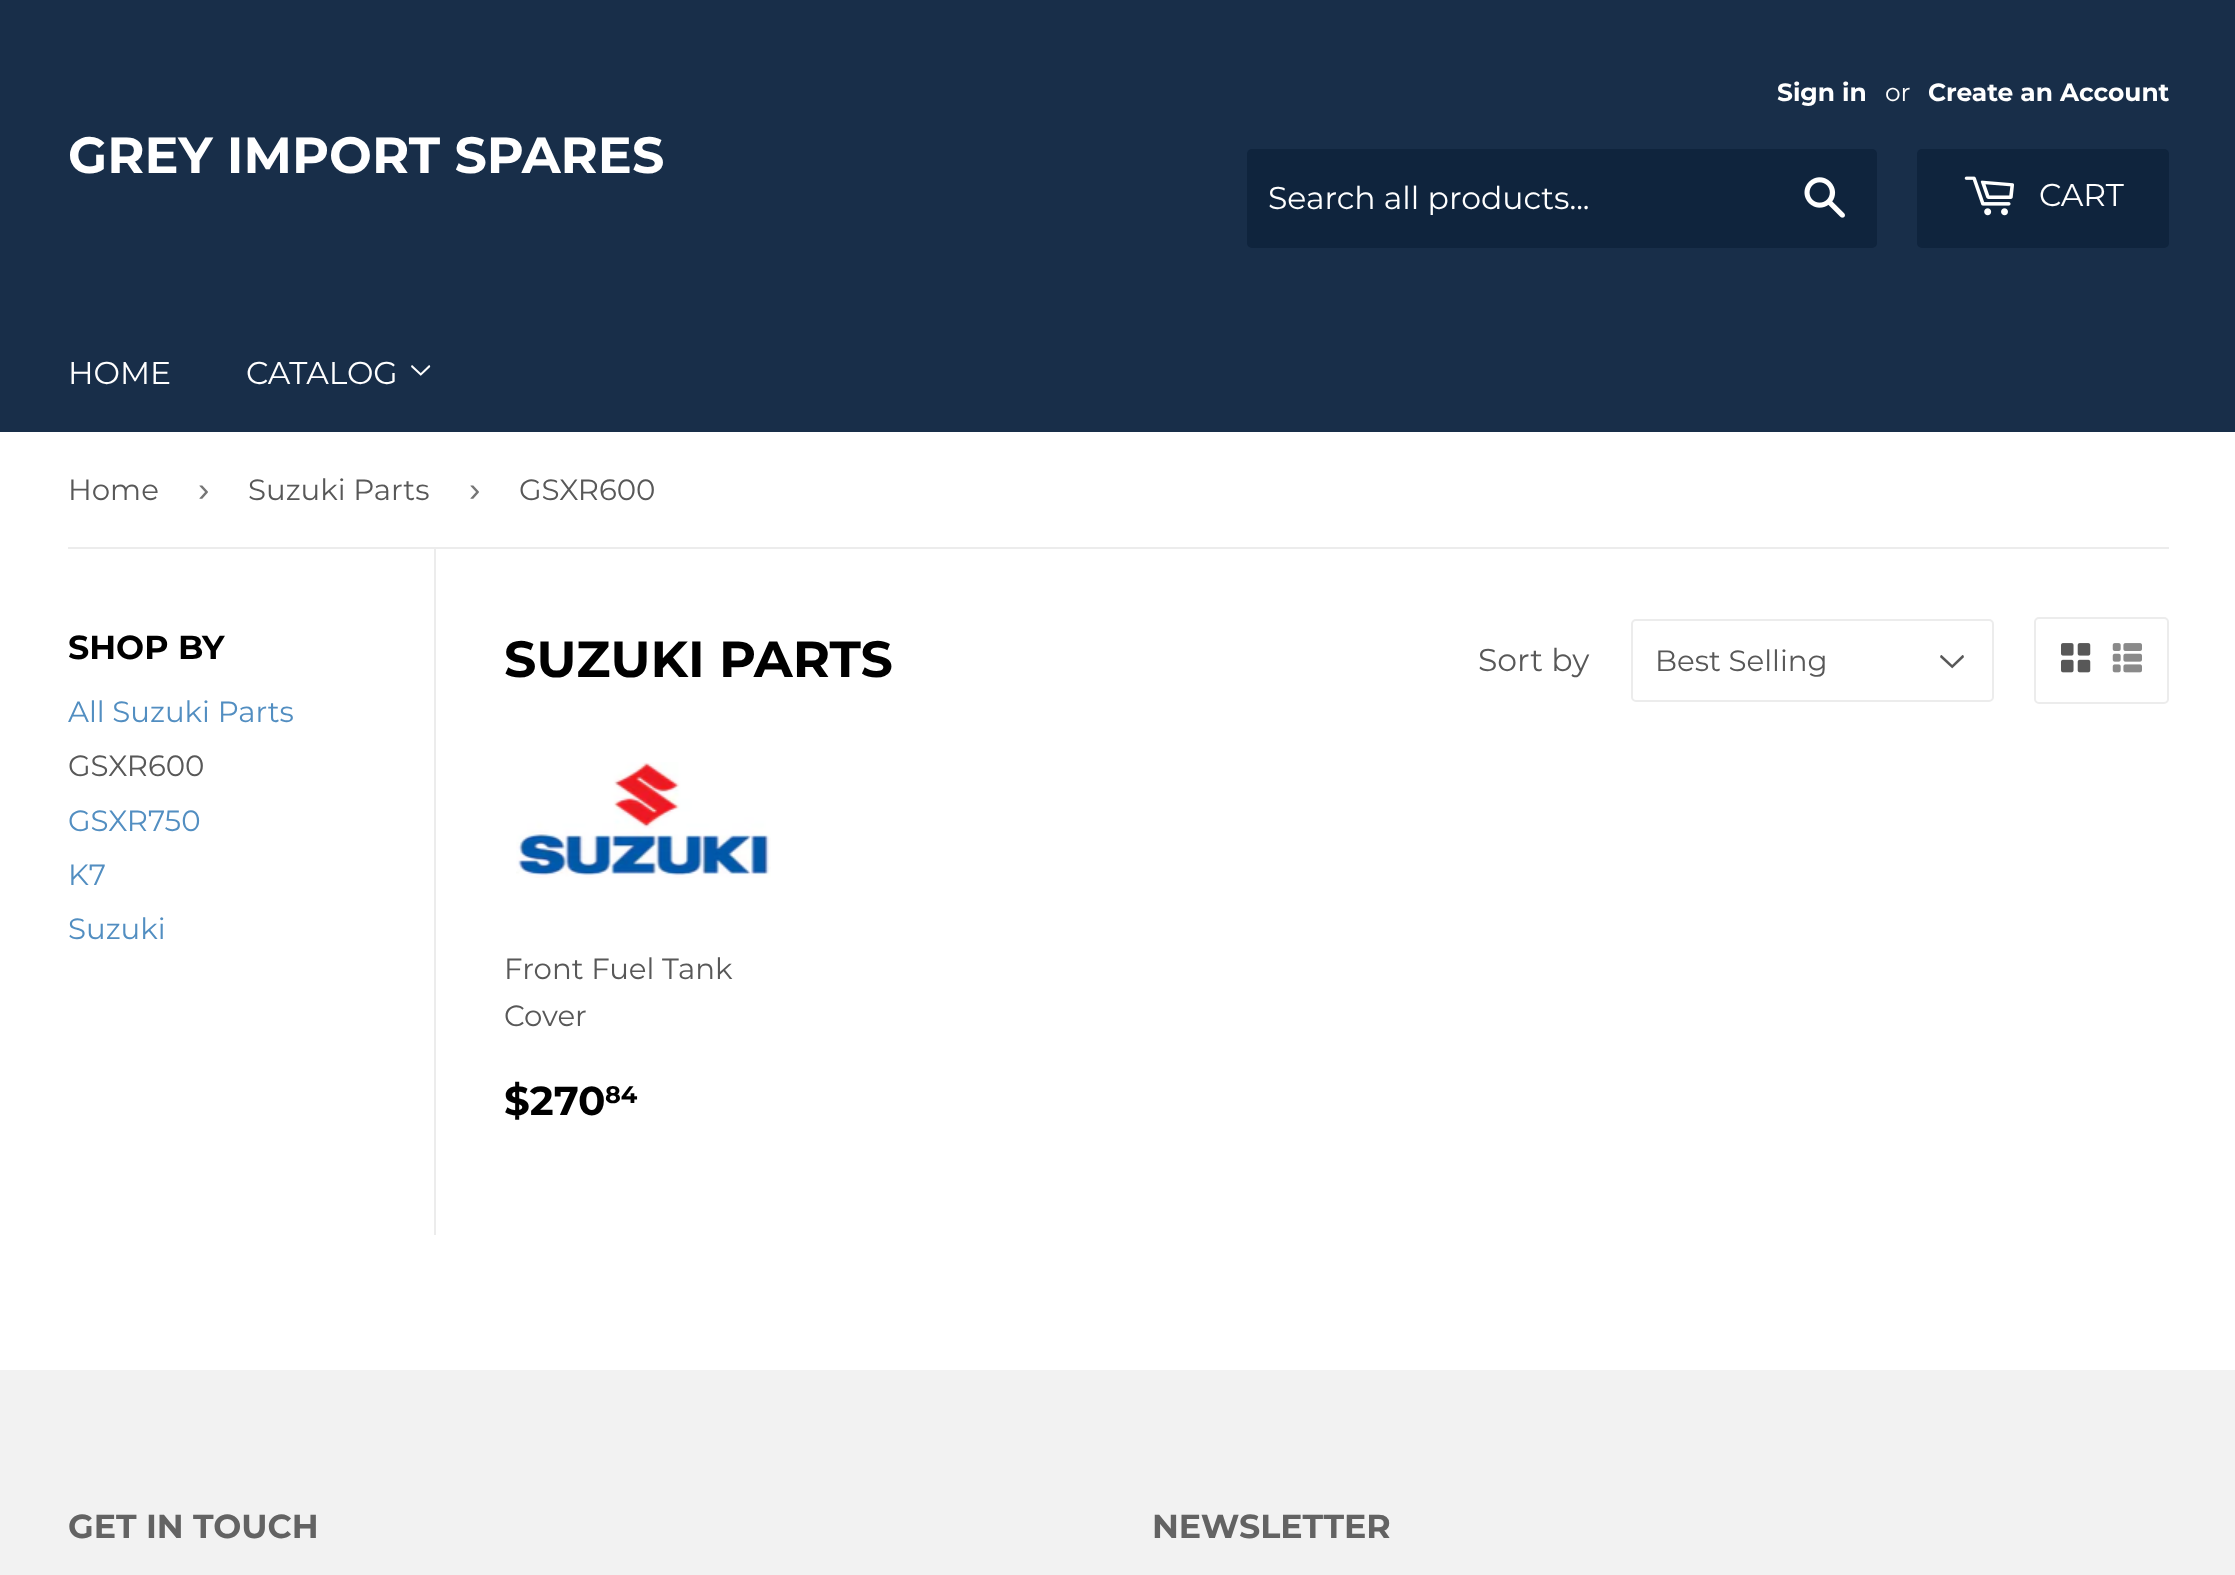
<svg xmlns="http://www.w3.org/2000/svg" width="2235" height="1575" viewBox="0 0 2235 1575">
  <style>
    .t1 { font: bold 50.75px Montserrat; fill: #fff; }
    .t2 { font: bold 24.9px Montserrat; fill: #fff; }
    .t3 { font: 24.9px Montserrat; fill: #fff; }
    .t4 { font: 31.5px Montserrat; fill: #fff; }
    .t5 { font: 29.25px Montserrat; fill: #585858; }
    .t6 { font: 34px Liberation Sans; fill: #767676; }
    .t7 { font: bold 33.25px Montserrat; fill: #000; }
    .t8 { font: 29.25px Montserrat; fill: #528ec1; }
    .t9 { font: bold 50.75px Montserrat; fill: #000; }
    .t10 { font: 31.5px Montserrat; fill: #585858; }
    .t11 { font: bold 40.5px Montserrat; fill: #000; }
    .t12 { font: bold 24px Montserrat; fill: #000; }
    .t13 { font: bold 33.25px Montserrat; fill: #636363; }
  </style>
  <rect width="100%" height="100%" fill="#fff"/>
  <rect x="0" y="0" width="2235" height="432" fill="#182e49"/>
  <text x="68" y="173" class="t1">GREY IMPORT SPARES</text>
  <text x="1777" y="101" class="t2">Sign in</text>
  <text x="1885" y="101" class="t3">or</text>
  <text x="1928" y="101" class="t2">Create an Account</text>
  <rect x="1247" y="149" width="630" height="99" rx="5" fill="#0f243d"/>
  <text x="1268" y="209" class="t4">Search all products...</text>
  <image x="1804" y="177" width="41" height="41" href="images/1.png"/>
  <rect x="1917" y="149" width="252" height="99" rx="5" fill="#0f243d"/>
  <image x="1964" y="176" width="50" height="40" href="images/2.png"/>
  <text x="2039" y="206" class="t4">CART</text>
  <text x="68" y="384" class="t4">HOME</text>
  <text x="246" y="384" class="t4">CATALOG</text>
  <image x="411" y="365" width="20" height="11" href="images/3.png"/>
  <rect x="68" y="547" width="2101" height="2" fill="#ececec"/>
  <text x="68" y="500" class="t5">Home</text>
  <text x="198" y="501" class="t6">›</text>
  <text x="248" y="500" class="t5">Suzuki Parts</text>
  <text x="469" y="501" class="t6">›</text>
  <text x="519" y="500" class="t5">GSXR600</text>
  <text x="68" y="659" class="t7">SHOP BY</text>
  <text x="68" y="722" class="t8">All Suzuki Parts</text>
  <text x="68" y="776" class="t5">GSXR600</text>
  <text x="68" y="831" class="t8">GSXR750</text>
  <text x="68" y="885" class="t8">K7</text>
  <text x="68" y="939" class="t8">Suzuki</text>
  <rect x="434" y="549" width="2" height="686" fill="#ececec"/>
  <text x="504" y="677" class="t9">SUZUKI PARTS</text>
  <text x="1478" y="671" class="t10">Sort by</text>
  <image x="1940" y="655" width="24" height="14" href="images/4.png"/>
  <rect x="1632" y="620" width="361" height="81" rx="4" fill="none" stroke="#ececec" stroke-width="2"/>
  <text x="1655" y="671" class="t5">Best Selling</text>
  <rect x="2035" y="618" width="133" height="85" rx="4" fill="none" stroke="#ececec" stroke-width="2"/>
  <image x="2061" y="643" width="30" height="30" href="images/5.png"/>
  <image x="2112" y="643" width="30" height="30" href="images/6.png"/>
  <image x="516" y="762" width="255" height="116" href="images/7.png"/>
  <text x="504" y="979" class="t5">Front Fuel Tank</text>
  <text x="504" y="1026" class="t5">Cover</text>
  <text x="504" y="1115" class="t11">$270</text>
  <text x="605" y="1103" class="t12">84</text>
  <rect x="0" y="1370" width="2235" height="205" fill="#f2f2f2"/>
  <text x="68" y="1538" class="t13">GET IN TOUCH</text>
  <text x="1152" y="1538" class="t13">NEWSLETTER</text>
</svg>
